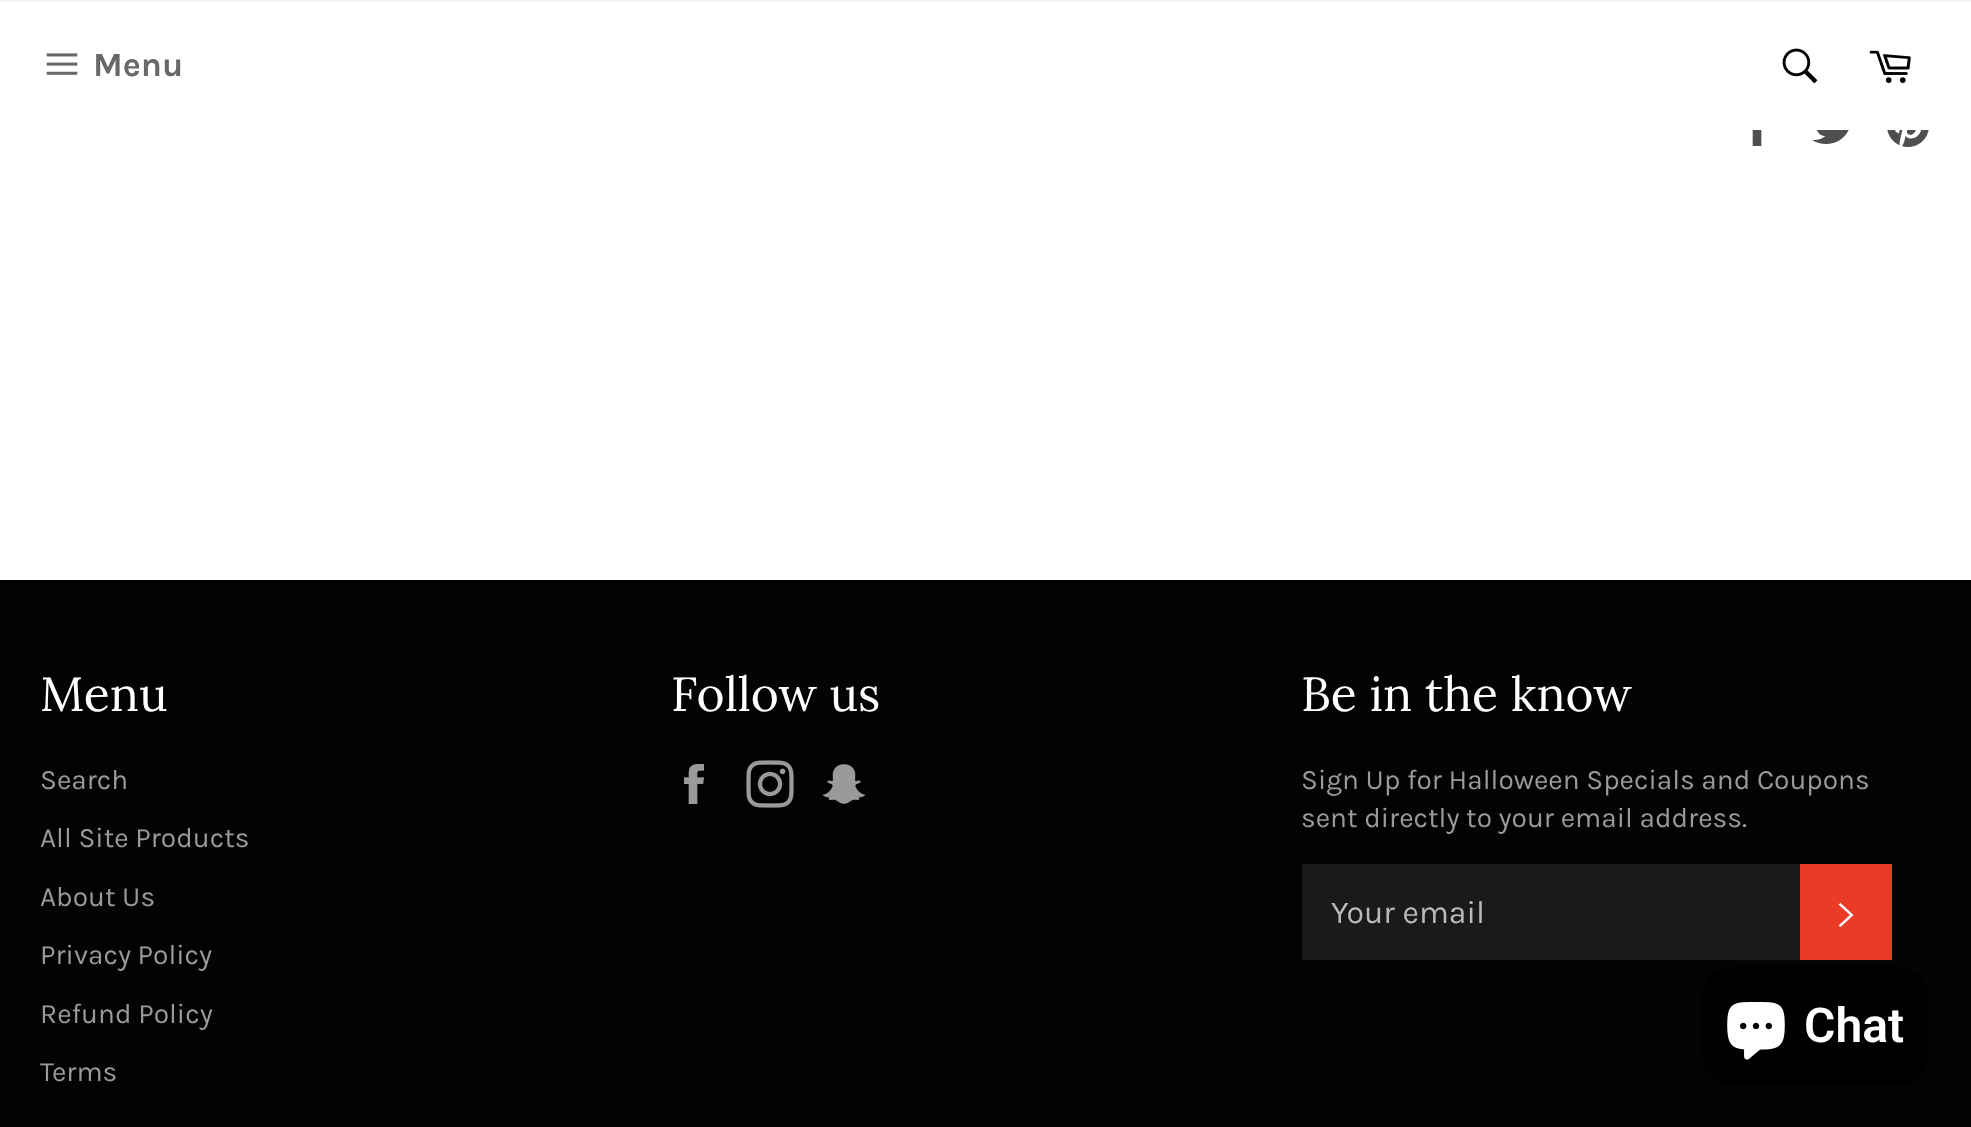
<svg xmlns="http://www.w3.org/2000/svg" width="1971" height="1127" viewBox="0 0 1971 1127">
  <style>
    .t1 { font: bold 34px Karla; fill: #686868; }
    .t2 { font: 48px Lora; fill: #fff; }
    .t3 { font: 28px Karla; fill: #9a9a9a; }
    .t4 { font: 32px Karla; fill: #bababa; }
    .t5 { font: 600 48px Roboto; fill: #fff; }
  </style>
  <rect width="100%" height="100%" fill="#fff"/>
  <rect x="0" y="0" width="1971" height="2" fill="#f2f2f2"/>
  <image x="46" y="53" width="32" height="22" href="images/1.png"/>
  <text x="93" y="76" class="t1">Menu</text>
  <image x="1782" y="48" width="36" height="36" href="images/2.png"/>
  <image x="1869" y="50" width="42" height="33" href="images/3.png"/>
  <image x="1752" y="130" width="10" height="16" href="images/4.png"/>
  <image x="1812" y="130" width="37" height="14" href="images/5.png"/>
  <image x="1887" y="130" width="42" height="17" href="images/6.png"/>
  <rect x="0" y="580" width="1971" height="547" fill="#030303"/>
  <text x="40" y="711" class="t2">Menu</text>
  <text x="40" y="789" class="t3">Search</text>
  <text x="40" y="847" class="t3">All Site Products</text>
  <text x="40" y="906" class="t3">About Us</text>
  <text x="40" y="964" class="t3">Privacy Policy</text>
  <text x="40" y="1023" class="t3">Refund Policy</text>
  <text x="40" y="1081" class="t3">Terms</text>
  <text x="671" y="711" class="t2">Follow us</text>
  <image x="684" y="764" width="20" height="40" href="images/7.png"/>
  <image x="746" y="760" width="48" height="48" href="images/8.png"/>
  <image x="823" y="764" width="42" height="40" href="images/9.png"/>
  <text x="1301" y="711" class="t2">Be in the know</text>
  <text x="1301" y="789" class="t3">Sign Up for Halloween Specials and Coupons</text>
  <text x="1301" y="827" class="t3">sent directly to your email address.</text>
  <rect x="1302" y="864" width="498" height="96" fill="#1a1a1a"/>
  <text x="1331" y="923" class="t4">Your email</text>
  <rect x="1800" y="864" width="92" height="96" fill="#ea3b27"/>
  <path d="M1838.5 904.5L1840.5 903L1853.5 915L1840.5 927L1838.5 925.5L1850 915Z" fill="#fff"/>
  <rect x="1702" y="966" width="226" height="120" rx="32" fill="#000"/>
  <image x="1727" y="1002" width="58" height="58" href="images/10.png"/>
  <text x="1804" y="1042" class="t5">Chat</text>
</svg>
